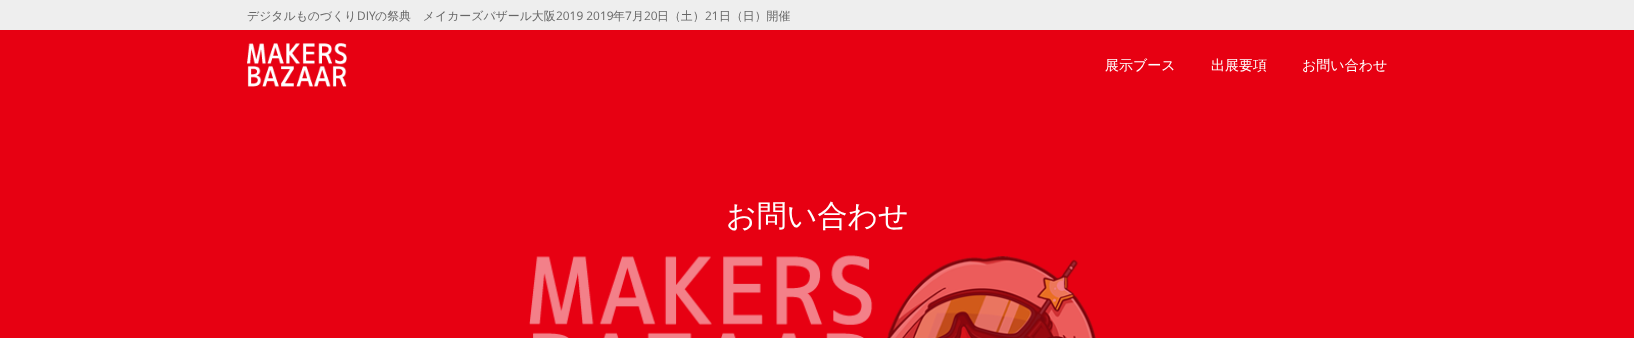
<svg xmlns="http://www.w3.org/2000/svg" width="1634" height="338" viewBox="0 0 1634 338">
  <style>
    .t1 { font: 500 11.9px WenQuanYi Zen Hei; fill: #666; }
    .t2 { font: 11.9px Open Sans; fill: #666; }
    .t3 { font: 500 14px WenQuanYi Zen Hei; fill: #fff; }
    .t4 { font: 500 30px WenQuanYi Zen Hei; fill: #fff; }
  </style>
  <rect width="100%" height="100%" fill="#fff"/>
  <rect x="0" y="0" width="1634" height="30" fill="#eee"/>
  <text x="247" y="20" class="t1">デジタルものづくり</text>
  <text x="357" y="20" class="t2">DIY</text>
  <text x="375" y="20" class="t1">の祭典　メイカーズバザール大阪</text>
  <text x="556" y="20" class="t2">2019 2019</text>
  <text x="613" y="20" class="t1">年</text>
  <text x="625" y="20" class="t2">7</text>
  <text x="632" y="20" class="t1">月</text>
  <text x="644" y="20" class="t2">20</text>
  <text x="657" y="20" class="t1">日（土）</text>
  <text x="705" y="20" class="t2">21</text>
  <text x="719" y="20" class="t1">日（日）開催</text>
  <image x="0" y="30" width="1634" height="308" href="images/2.png"/>
  <image x="247" y="43" width="100" height="44" href="images/1.png"/>
  <text x="1105" y="70" class="t3">展示ブース</text>
  <text x="1211" y="70" class="t3">出展要項</text>
  <text x="1302" y="70" class="t3">お問い合わせ</text>
  <text x="726" y="226" class="t4">お問い合わせ</text>
</svg>
